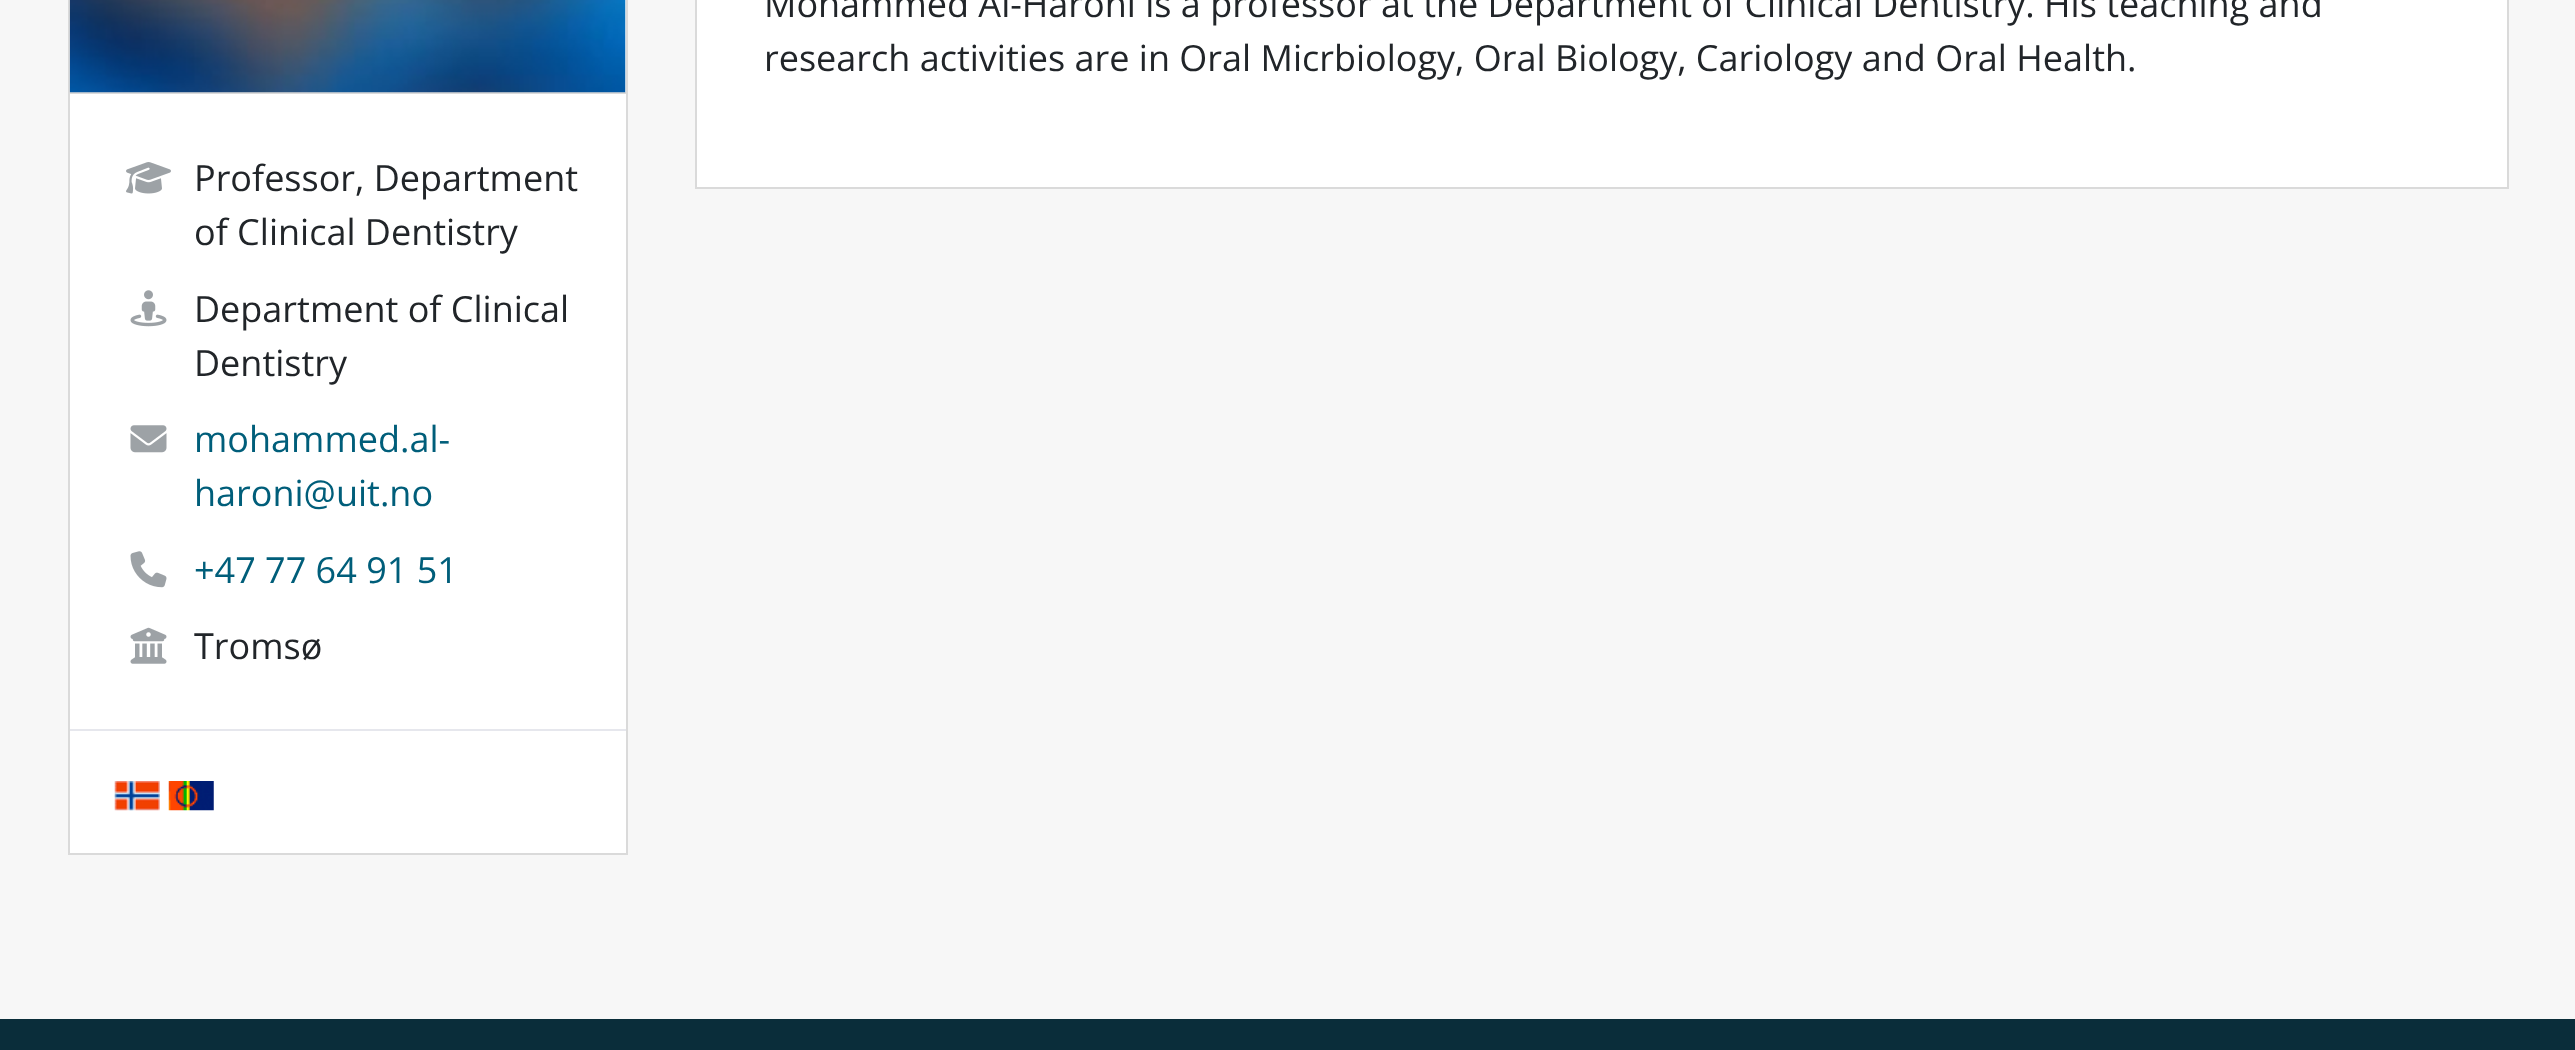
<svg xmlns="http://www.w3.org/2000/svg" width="2575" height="1050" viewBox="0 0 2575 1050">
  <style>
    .t1 { font: 36px Open Sans; fill: #212529; }
    .t2 { font: 36px Open Sans; fill: #005e7a; }
  </style>
  <rect width="100%" height="100%" fill="#f7f7f7"/>
  <rect x="696" y="-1" width="1812" height="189" fill="#fff" stroke="#dadada" stroke-width="2"/>
  <text x="764" y="17" class="t1">Mohammed Al-Haroni is a professor at the Department of Clinical Dentistry. His teaching and</text>
  <text x="764" y="71" class="t1">research activities are in Oral Micrbiology, Oral Biology, Cariology and Oral Health.</text>
  <rect x="626" y="0" width="2" height="92" fill="#dadada"/>
  <rect x="68" y="0" width="2" height="92" fill="#dadada"/>
  <rect x="69" y="93" width="558" height="761" fill="#fff" stroke="#dadada" stroke-width="2"/>
  <image x="69" y="0" width="557" height="93" href="images/1.png"/>
  <rect x="70" y="729" width="556" height="2" fill="#e6e7ed"/>
  <image x="126" y="162" width="45" height="32" href="images/2.png"/>
  <text x="194" y="191" class="t1">Professor, Department</text>
  <text x="194" y="245" class="t1">of Clinical Dentistry</text>
  <image x="130" y="290" width="37" height="37" href="images/3.png"/>
  <text x="194" y="322" class="t1">Department of Clinical</text>
  <text x="194" y="376" class="t1">Dentistry</text>
  <image x="130" y="425" width="37" height="28" href="images/4.png"/>
  <text x="194" y="452" class="t2">mohammed.al-</text>
  <text x="194" y="506" class="t2">haroni@uit.no</text>
  <image x="130" y="551" width="37" height="37" href="images/5.png"/>
  <text x="194" y="583" class="t2">+47 77 64 91 51</text>
  <image x="130" y="627" width="37" height="37" href="images/6.png"/>
  <text x="194" y="659" class="t1">Tromsø</text>
  <image x="114" y="781" width="46" height="30" href="images/7.png"/>
  <image x="168" y="781" width="46" height="30" href="images/8.png"/>
  <rect x="0" y="1019" width="2575" height="31" fill="#0a2d3a"/>
</svg>
